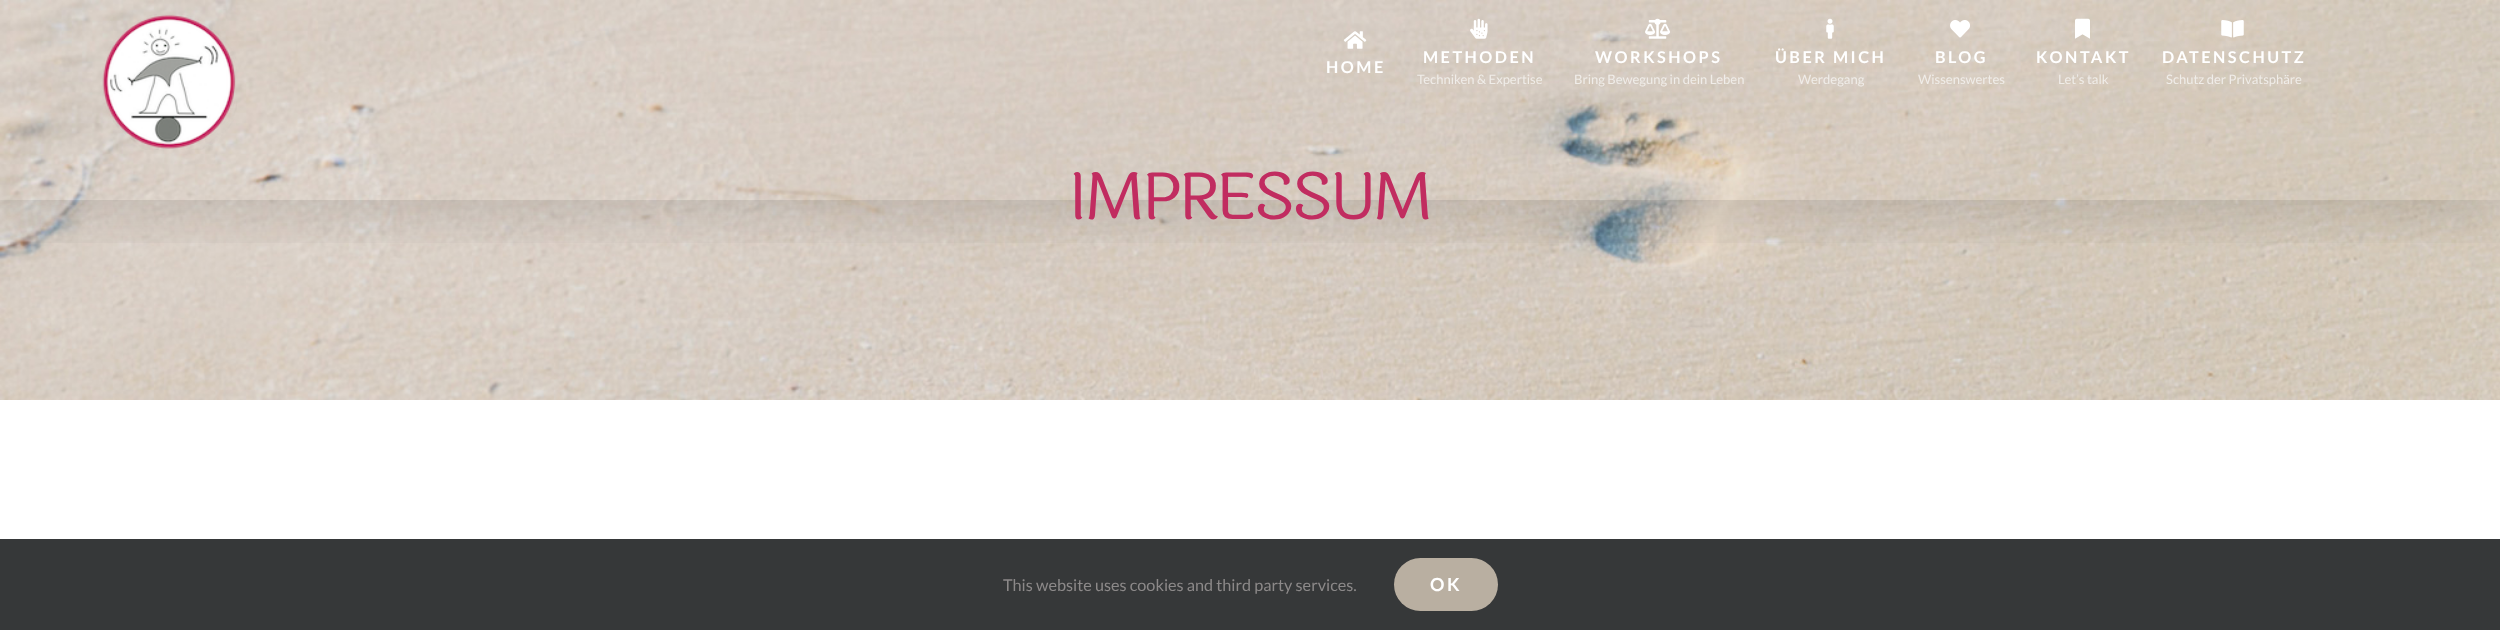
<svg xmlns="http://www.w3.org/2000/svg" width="2500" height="630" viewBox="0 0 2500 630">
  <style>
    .t1 { font: bold 16.25px Lato; letter-spacing: 2.5px; fill: #fff; }
    .t2 { font: 13px Lato; fill: #f0ede9; }
    .t3 { font: 65px Laila; letter-spacing: -3.75px; fill: #c12c60; }
    .t4 { font: 16.25px Lato; fill: #8c8989; }
    .t5 { font: bold 18px Lato; letter-spacing: 2.5px; fill: #fff; }
  </style>
  <defs>
    <clipPath id="clip1"><rect x="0" y="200" width="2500" height="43"/></clipPath>
  </defs>
  <rect width="100%" height="100%" fill="#fff"/>
  <image x="0" y="0" width="2500" height="400" href="images/9.png"/>
  <g clip-path="url(#clip1)">
    <rect x="3" y="15" width="2495" height="195" fill="#00000024" filter="blur(31px)"/>
  </g>
  <image x="102" y="14" width="135" height="136" href="images/1.png"/>
  <image x="1343" y="31" width="24" height="18" href="images/2.png"/>
  <text x="1326" y="73" class="t1">HOME</text>
  <image x="1470" y="18" width="18" height="21" href="images/3.png"/>
  <text x="1423" y="63" class="t1">METHODEN</text>
  <text x="1417" y="84" class="t2">Techniken &amp; Expertise</text>
  <image x="1645" y="18" width="25" height="21" href="images/4.png"/>
  <text x="1595" y="63" class="t1">WORKSHOPS</text>
  <text x="1574" y="84" class="t2">Bring Bewegung in dein Leben</text>
  <image x="1826" y="18" width="8" height="21" href="images/5.png"/>
  <text x="1775" y="63" class="t1">ÜBER MICH</text>
  <text x="1798" y="84" class="t2">Werdegang</text>
  <image x="1950" y="20" width="20" height="18" href="images/6.png"/>
  <text x="1935" y="63" class="t1">BLOG</text>
  <text x="1918" y="84" class="t2">Wissenswertes</text>
  <image x="2075" y="18" width="15" height="21" href="images/7.png"/>
  <text x="2036" y="63" class="t1">KONTAKT</text>
  <text x="2058" y="84" class="t2">Let’s talk</text>
  <image x="2221" y="20" width="23" height="18" href="images/8.png"/>
  <text x="2162" y="63" class="t1">DATENSCHUTZ</text>
  <text x="2166" y="84" class="t2">Schutz der Privatsphäre</text>
  <text x="1069" y="219" class="t3">IMPRESSUM</text>
  <rect x="0" y="539" width="2500" height="91" fill="#363839"/>
  <text x="1003" y="591" class="t4">This website uses cookies and third party services.</text>
  <rect x="1394" y="558" width="104" height="53" rx="26.5" fill="#b9afa1"/>
  <text x="1430" y="591" class="t5">OK</text>
</svg>
